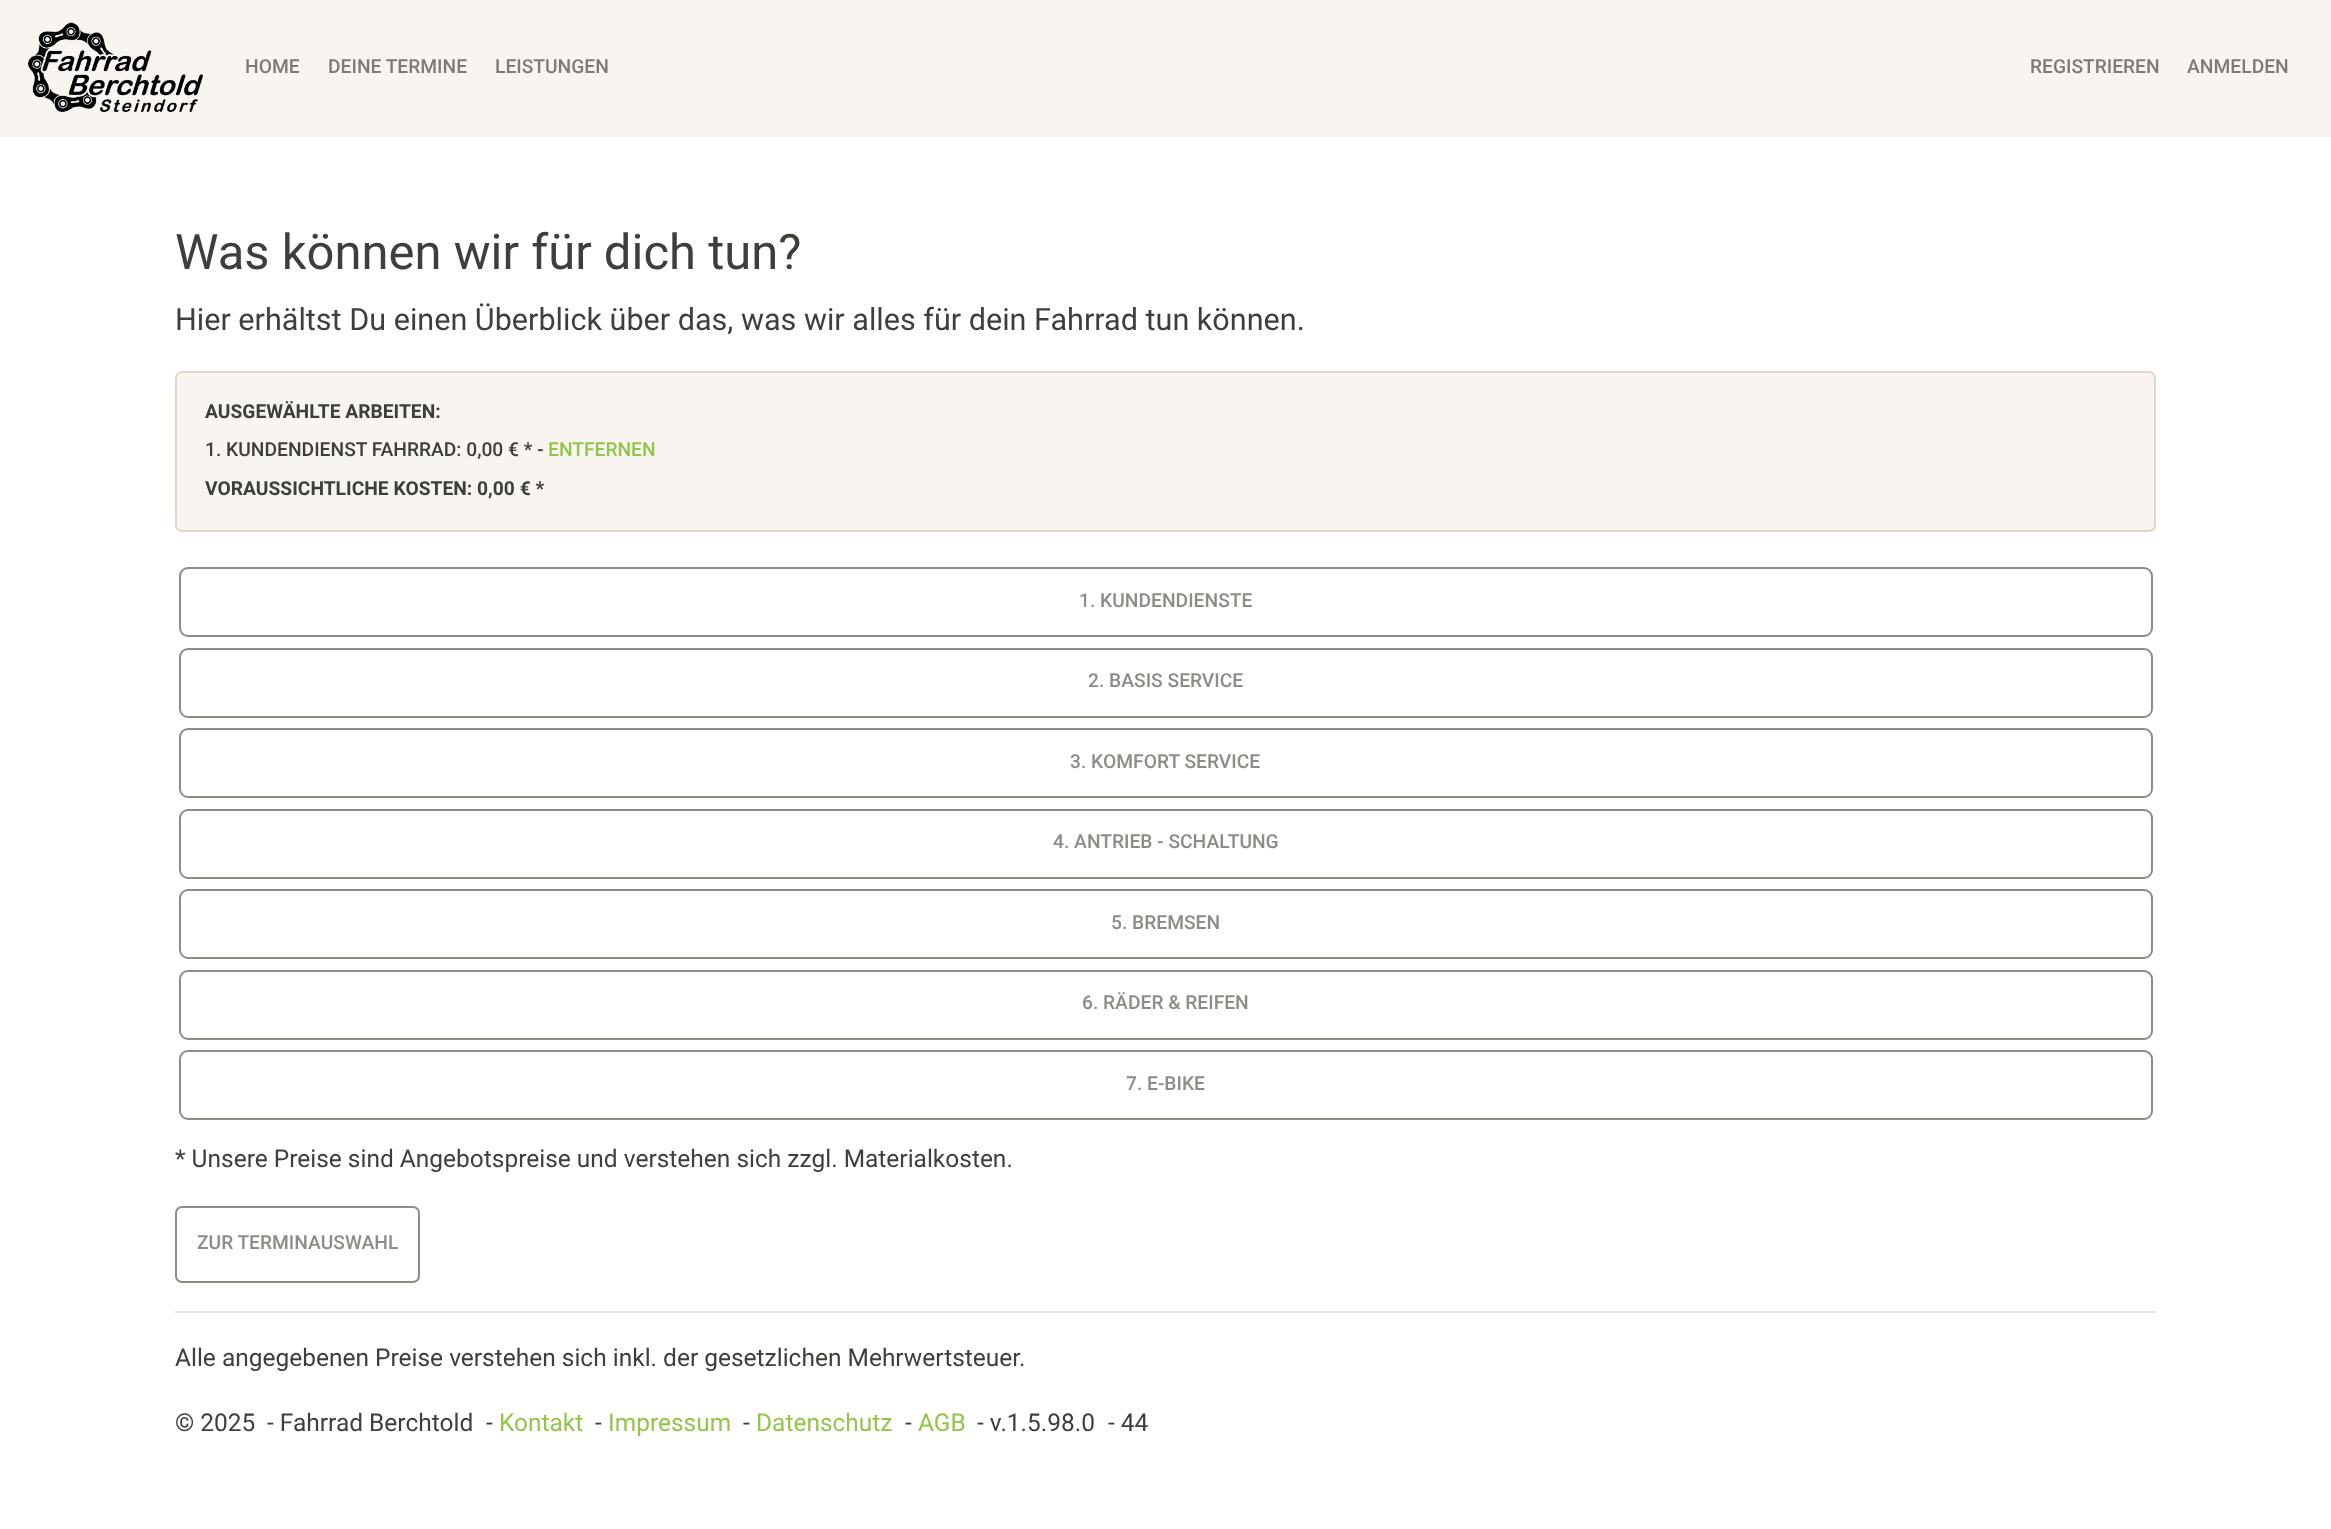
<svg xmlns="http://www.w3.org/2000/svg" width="2331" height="1529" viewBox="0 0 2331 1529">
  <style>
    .t1 { font: 500 19.25px Roboto; fill: #7c7b78; }
    .t2 { font: 49px Roboto; fill: #3e3f3a; }
    .t3 { font: 30.6px Roboto; fill: #3e3f3a; }
    .t4 { font: bold 19.25px Roboto; fill: #3e3f3a; }
    .t5 { font: 500 19.25px Roboto; fill: #3e3f3a; }
    .t6 { font: 500 19.25px Roboto; fill: #93c54b; }
    .t7 { font: 500 19.25px Roboto; fill: #8e8c84; }
    .t8 { font: 24.5px Roboto; fill: #3e3f3a; }
    .t9 { font: 24.5px Roboto; fill: #93c54b; }
  </style>
  <rect width="100%" height="100%" fill="#fff"/>
  <rect x="0" y="0" width="2331" height="137" fill="#f8f5f0"/>
  <image x="28" y="22" width="175" height="90" href="images/1.png"/>
  <text x="245" y="73" class="t1">HOME</text>
  <text x="328" y="73" class="t1">DEINE TERMINE</text>
  <text x="495" y="73" class="t1">LEISTUNGEN</text>
  <text x="2030" y="73" class="t1">REGISTRIEREN</text>
  <text x="2187" y="73" class="t1">ANMELDEN</text>
  <text x="175" y="269" class="t2">Was können wir für dich tun?</text>
  <text x="175" y="330" class="t3">Hier erhältst Du einen Überblick über das, was wir alles für dein Fahrrad tun können.</text>
  <rect x="176" y="372" width="1979" height="159" rx="6" fill="#f8f5f0" stroke="#dfd7ca" stroke-width="2"/>
  <text x="205" y="418" class="t4">AUSGEWÄHLTE ARBEITEN:</text>
  <text x="205" y="456" class="t5">1. KUNDENDIENST FAHRRAD: 0,00 € * -</text>
  <text x="548" y="456" class="t6">ENTFERNEN</text>
  <text x="205" y="495" class="t4">VORAUSSICHTLICHE KOSTEN: 0,00 € *</text>
  <rect x="180" y="568" width="1972" height="68" rx="8" fill="none" stroke="#8e8c84" stroke-width="2"/>
  <text x="1079" y="607" class="t7">1. KUNDENDIENSTE</text>
  <rect x="180" y="649" width="1972" height="68" rx="8" fill="none" stroke="#8e8c84" stroke-width="2"/>
  <text x="1088" y="687" class="t7">2. BASIS SERVICE</text>
  <rect x="180" y="729" width="1972" height="68" rx="8" fill="none" stroke="#8e8c84" stroke-width="2"/>
  <text x="1070" y="768" class="t7">3. KOMFORT SERVICE</text>
  <rect x="180" y="810" width="1972" height="68" rx="8" fill="none" stroke="#8e8c84" stroke-width="2"/>
  <text x="1053" y="848" class="t7">4. ANTRIEB - SCHALTUNG</text>
  <rect x="180" y="890" width="1972" height="68" rx="8" fill="none" stroke="#8e8c84" stroke-width="2"/>
  <text x="1111" y="929" class="t7">5. BREMSEN</text>
  <rect x="180" y="971" width="1972" height="68" rx="8" fill="none" stroke="#8e8c84" stroke-width="2"/>
  <text x="1082" y="1009" class="t7">6. RÄDER &amp; REIFEN</text>
  <rect x="180" y="1051" width="1972" height="68" rx="8" fill="none" stroke="#8e8c84" stroke-width="2"/>
  <text x="1126" y="1090" class="t7">7. E-BIKE</text>
  <text x="175" y="1167" class="t8">* Unsere Preise sind Angebotspreise und verstehen sich zzgl. Materialkosten.</text>
  <rect x="176" y="1207" width="243" height="75" rx="6" fill="none" stroke="#8e8c84" stroke-width="2"/>
  <text x="197" y="1249" class="t7">ZUR TERMINAUSWAHL</text>
  <rect x="175" y="1311" width="1981" height="2" fill="#e6e6e6"/>
  <text x="175" y="1366" class="t8">Alle angegebenen Preise verstehen sich inkl. der gesetzlichen Mehrwertsteuer.</text>
  <text x="175" y="1431" class="t8">© 2025</text>
  <text x="267" y="1431" class="t8">- Fahrrad Berchtold</text>
  <text x="486" y="1431" class="t8">-</text>
  <text x="499" y="1431" class="t9">Kontakt</text>
  <text x="595" y="1431" class="t8">-</text>
  <text x="608" y="1431" class="t9">Impressum</text>
  <text x="743" y="1431" class="t8">-</text>
  <text x="756" y="1431" class="t9">Datenschutz</text>
  <text x="905" y="1431" class="t8">-</text>
  <text x="918" y="1431" class="t9">AGB</text>
  <text x="977" y="1431" class="t8">- v.1.5.98.0</text>
  <text x="1108" y="1431" class="t8">- 44</text>
</svg>
